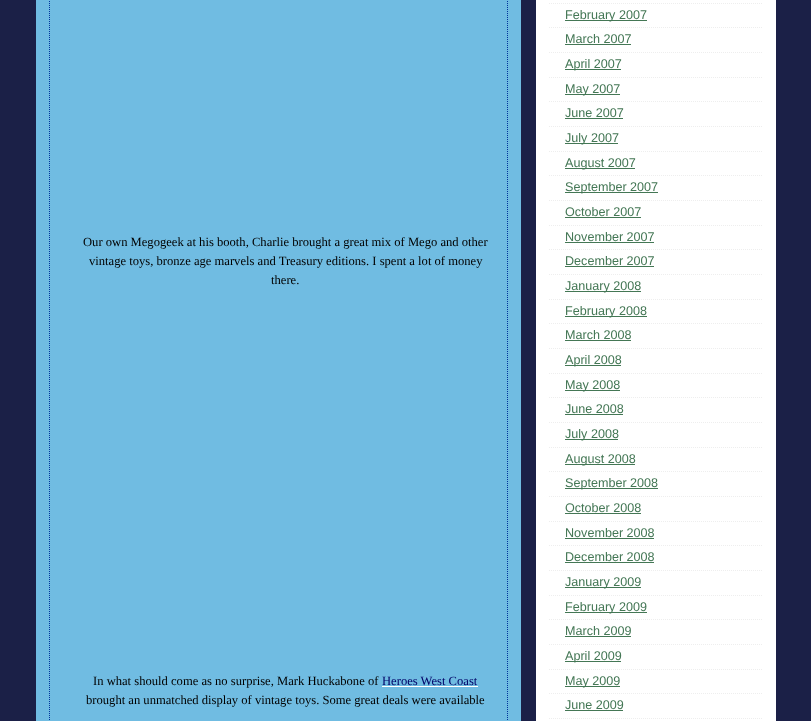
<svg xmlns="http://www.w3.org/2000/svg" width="811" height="721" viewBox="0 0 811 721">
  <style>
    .t1 { font: 12.6px Liberation Serif; fill: #000; }
    .t2 { font: 12.6px Liberation Serif; fill: #006; }
    .t3 { font: 12.6px Liberation Sans; fill: #475; }
  </style>
  <rect width="100%" height="100%" fill="#1b2047"/>
  <rect x="36" y="0" width="485" height="721" fill="#70bce2"/>
  <path d="M507.5-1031V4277" fill="none" stroke="#039" stroke-dasharray="1 1"/>
  <path d="M49.5-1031V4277" fill="none" stroke="#039" stroke-dasharray="1 1"/>
  <text x="83" y="246" class="t1">Our own Megogeek at his booth, Charlie brought a great mix of Mego and other</text>
  <text x="89" y="265" class="t1">vintage toys, bronze age marvels and Treasury editions. I spent a lot of money</text>
  <text x="271" y="284" class="t1">there.</text>
  <text x="93" y="685" class="t1">In what should come as no surprise, Mark Huckabone of</text>
  <rect x="382" y="686" width="96" height="1" fill="#fff"/>
  <text x="382" y="685" class="t2">Heroes West Coast</text>
  <text x="86" y="704" class="t1">brought an unmatched display of vintage toys. Some great deals were available</text>
  <rect x="536" y="0" width="240" height="721" fill="#fff"/>
  <path d="M549 3.5H763" fill="none" stroke="#eee" stroke-dasharray="1 1"/>
  <path d="M549 27.5H763" fill="none" stroke="#eee" stroke-dasharray="1 1"/>
  <rect x="565" y="20" width="82" height="1" fill="#475"/>
  <text x="565" y="19" class="t3">February 2007</text>
  <path d="M549 52.5H763" fill="none" stroke="#eee" stroke-dasharray="1 1"/>
  <text x="565" y="43" class="t3">March 2007</text>
  <rect x="565" y="44" width="66" height="1" fill="#475"/>
  <path d="M549 77.5H763" fill="none" stroke="#eee" stroke-dasharray="1 1"/>
  <rect x="565" y="69" width="56" height="1" fill="#475"/>
  <text x="565" y="68" class="t3">April 2007</text>
  <path d="M549 101.5H763" fill="none" stroke="#eee" stroke-dasharray="1 1"/>
  <rect x="565" y="94" width="55" height="1" fill="#475"/>
  <text x="565" y="93" class="t3">May 2007</text>
  <path d="M549 126.5H763" fill="none" stroke="#eee" stroke-dasharray="1 1"/>
  <text x="565" y="117" class="t3">June 2007</text>
  <rect x="565" y="118" width="58" height="1" fill="#475"/>
  <path d="M549 151.5H763" fill="none" stroke="#eee" stroke-dasharray="1 1"/>
  <rect x="565" y="143" width="53" height="1" fill="#475"/>
  <text x="565" y="142" class="t3">July 2007</text>
  <path d="M549 175.5H763" fill="none" stroke="#eee" stroke-dasharray="1 1"/>
  <rect x="565" y="168" width="70" height="1" fill="#475"/>
  <text x="565" y="167" class="t3">August 2007</text>
  <path d="M549 200.5H763" fill="none" stroke="#eee" stroke-dasharray="1 1"/>
  <rect x="565" y="192" width="93" height="1" fill="#475"/>
  <text x="565" y="191" class="t3">September 2007</text>
  <path d="M549 225.5H763" fill="none" stroke="#eee" stroke-dasharray="1 1"/>
  <text x="565" y="216" class="t3">October 2007</text>
  <rect x="565" y="217" width="76" height="1" fill="#475"/>
  <path d="M549 249.5H763" fill="none" stroke="#eee" stroke-dasharray="1 1"/>
  <text x="565" y="241" class="t3">November 2007</text>
  <rect x="565" y="242" width="89" height="1" fill="#475"/>
  <path d="M549 274.5H763" fill="none" stroke="#eee" stroke-dasharray="1 1"/>
  <text x="565" y="265" class="t3">December 2007</text>
  <rect x="565" y="266" width="89" height="1" fill="#475"/>
  <path d="M549 299.5H763" fill="none" stroke="#eee" stroke-dasharray="1 1"/>
  <rect x="565" y="291" width="76" height="1" fill="#475"/>
  <text x="565" y="290" class="t3">January 2008</text>
  <path d="M549 323.5H763" fill="none" stroke="#eee" stroke-dasharray="1 1"/>
  <rect x="565" y="316" width="82" height="1" fill="#475"/>
  <text x="565" y="315" class="t3">February 2008</text>
  <path d="M549 348.5H763" fill="none" stroke="#eee" stroke-dasharray="1 1"/>
  <text x="565" y="339" class="t3">March 2008</text>
  <rect x="565" y="340" width="66" height="1" fill="#475"/>
  <path d="M549 373.5H763" fill="none" stroke="#eee" stroke-dasharray="1 1"/>
  <rect x="565" y="365" width="56" height="1" fill="#475"/>
  <text x="565" y="364" class="t3">April 2008</text>
  <path d="M549 397.5H763" fill="none" stroke="#eee" stroke-dasharray="1 1"/>
  <rect x="565" y="390" width="55" height="1" fill="#475"/>
  <text x="565" y="389" class="t3">May 2008</text>
  <path d="M549 422.5H763" fill="none" stroke="#eee" stroke-dasharray="1 1"/>
  <text x="565" y="413" class="t3">June 2008</text>
  <rect x="565" y="414" width="58" height="1" fill="#475"/>
  <path d="M549 447.5H763" fill="none" stroke="#eee" stroke-dasharray="1 1"/>
  <rect x="565" y="439" width="53" height="1" fill="#475"/>
  <text x="565" y="438" class="t3">July 2008</text>
  <path d="M549 471.5H763" fill="none" stroke="#eee" stroke-dasharray="1 1"/>
  <rect x="565" y="464" width="70" height="1" fill="#475"/>
  <text x="565" y="463" class="t3">August 2008</text>
  <path d="M549 496.5H763" fill="none" stroke="#eee" stroke-dasharray="1 1"/>
  <rect x="565" y="488" width="93" height="1" fill="#475"/>
  <text x="565" y="487" class="t3">September 2008</text>
  <path d="M549 521.5H763" fill="none" stroke="#eee" stroke-dasharray="1 1"/>
  <text x="565" y="512" class="t3">October 2008</text>
  <rect x="565" y="513" width="76" height="1" fill="#475"/>
  <path d="M549 545.5H763" fill="none" stroke="#eee" stroke-dasharray="1 1"/>
  <text x="565" y="537" class="t3">November 2008</text>
  <rect x="565" y="538" width="89" height="1" fill="#475"/>
  <path d="M549 570.5H763" fill="none" stroke="#eee" stroke-dasharray="1 1"/>
  <text x="565" y="561" class="t3">December 2008</text>
  <rect x="565" y="562" width="89" height="1" fill="#475"/>
  <path d="M549 595.5H763" fill="none" stroke="#eee" stroke-dasharray="1 1"/>
  <rect x="565" y="587" width="76" height="1" fill="#475"/>
  <text x="565" y="586" class="t3">January 2009</text>
  <path d="M549 619.5H763" fill="none" stroke="#eee" stroke-dasharray="1 1"/>
  <rect x="565" y="612" width="82" height="1" fill="#475"/>
  <text x="565" y="611" class="t3">February 2009</text>
  <path d="M549 644.5H763" fill="none" stroke="#eee" stroke-dasharray="1 1"/>
  <text x="565" y="635" class="t3">March 2009</text>
  <rect x="565" y="636" width="66" height="1" fill="#475"/>
  <path d="M549 669.5H763" fill="none" stroke="#eee" stroke-dasharray="1 1"/>
  <rect x="565" y="661" width="56" height="1" fill="#475"/>
  <text x="565" y="660" class="t3">April 2009</text>
  <path d="M549 693.5H763" fill="none" stroke="#eee" stroke-dasharray="1 1"/>
  <rect x="565" y="686" width="55" height="1" fill="#475"/>
  <text x="565" y="685" class="t3">May 2009</text>
  <path d="M549 718.5H763" fill="none" stroke="#eee" stroke-dasharray="1 1"/>
  <text x="565" y="709" class="t3">June 2009</text>
  <rect x="565" y="710" width="58" height="1" fill="#475"/>
</svg>
